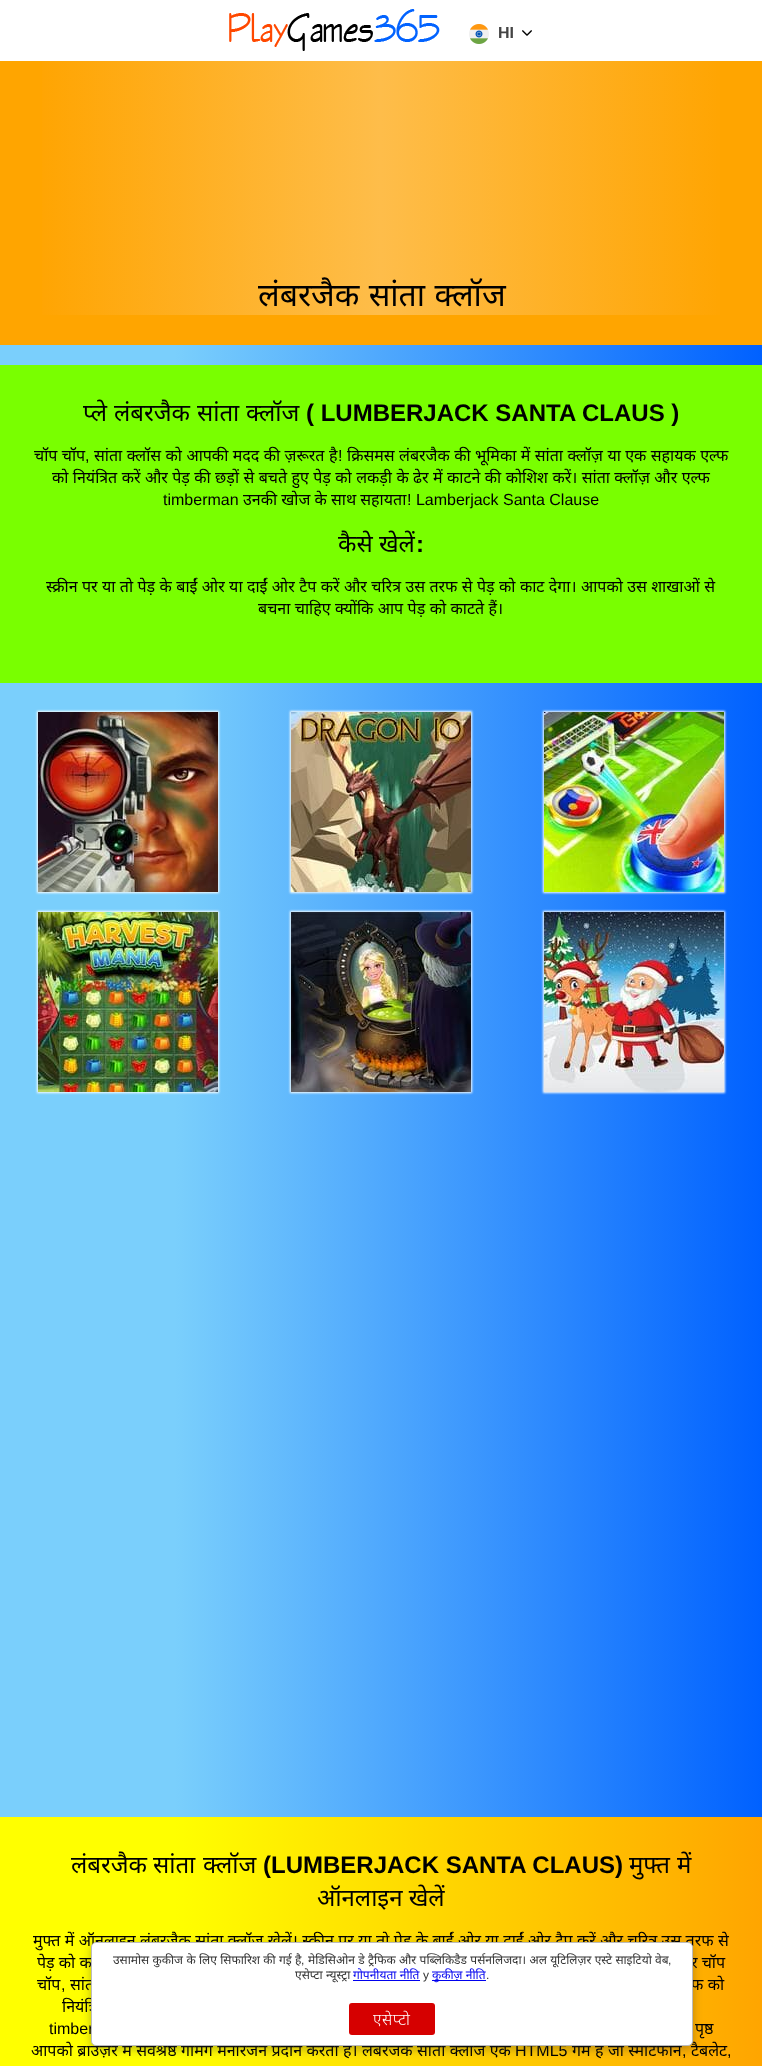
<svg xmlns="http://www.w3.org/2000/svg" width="762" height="2066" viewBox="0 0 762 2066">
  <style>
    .t1 { font: bold 16px Liberation Sans; fill: #444; }
    .t2 { font: 32px Noto Sans; fill: #000; }
    .t3 { font: 24px Noto Sans; fill: #000; }
    .t4 { font: bold 24px Liberation Sans; fill: #000; }
    .t5 { font: 16px Noto Sans; fill: #000; }
    .t6 { font: 16px Liberation Sans; fill: #000; }
    .t7 { font: 12px Noto Sans; fill: #333; }
    .t8 { font: 12px Liberation Sans; fill: #333; }
    .t9 { font: 12px Noto Sans; fill: #00e; }
    .t10 { font: 300 16px Noto Sans; letter-spacing: 0.5px; fill: #fff; }
  </style>
  <defs>
    <linearGradient id="g1" gradientUnits="userSpaceOnUse" x1="0" y1="863" x2="762" y2="863"><stop offset="0.23" stop-color="#7acffc"/><stop offset="1" stop-color="#0061ff"/></linearGradient>
    <linearGradient id="g2" gradientUnits="userSpaceOnUse" x1="30" y1="149" x2="732" y2="148"><stop offset="0" stop-color="#ffa400"/><stop offset="0.5" stop-color="#febd4a"/><stop offset="1" stop-color="#ffa400"/></linearGradient>
    <linearGradient id="g3" gradientUnits="userSpaceOnUse" x1="0" y1="1973" x2="762" y2="1973"><stop offset="0.23" stop-color="#ff0"/><stop offset="1" stop-color="#ffa500"/></linearGradient>
  </defs>
  <rect width="100%" height="100%" fill="#fff"/>
  <rect x="0" y="345" width="762" height="1472" fill="url(#g1)"/>
  <image x="229" y="9" width="211" height="42" href="images/1.png"/>
  <image x="469" y="24" width="20" height="20" href="images/2.png"/>
  <text x="498" y="38" class="t1">HI</text>
  <image x="522" y="30" width="10" height="6" href="images/3.png"/>
  <rect x="0" y="61" width="762" height="284" fill="#ffa500"/>
  <rect x="42" y="61" width="678" height="254" fill="url(#g2)"/>
  <text x="258" y="306" word-spacing="1" class="t2">लंबरजैक सांता क्लॉज</text>
  <rect x="0" y="365" width="762" height="318" fill="#79ff00"/>
  <text x="83" y="421" class="t3">प्ले</text>
  <text x="114" y="421" class="t3">लंबरजैक</text>
  <text x="197" y="421" class="t3">सांता</text>
  <text x="246" y="421" class="t3">क्लॉज</text>
  <text x="306" y="421" class="t4">( LUMBERJACK SANTA CLAUS )</text>
  <text x="34" y="461" word-spacing="0.25" class="t5">चॉप चॉप</text>
  <text x="94" y="461" word-spacing="0.25" class="t5">सांता क्लॉस को आपकी मदद की ज़रूरत है</text>
  <text x="338" y="461" class="t6">!</text>
  <text x="347" y="461" word-spacing="0.25" class="t5">क्रिसमस लंबरजैक की भूमिका में सांता क्लॉज़ या एक सहायक एल्फ</text>
  <text x="85" y="461" class="t6">,</text>
  <text x="52" y="483" word-spacing="0.25" class="t5">को नियंत्रित करें और पेड़ की छड़ों से बचते हुए पेड़ को लकड़ी के ढेर में काटने की कोशिश करें। सांता क्लॉज़ और एल्फ</text>
  <text x="163" y="505" class="t6">timberman</text>
  <text x="243" y="505" class="t5">उनकी खोज के साथ सहायता</text>
  <text x="407" y="505" class="t6">! Lamberjack Santa Clause</text>
  <text x="338" y="552" class="t3">कैसे खेलें</text>
  <text x="416" y="552" class="t4">:</text>
  <text x="46" y="592" word-spacing="0.25" class="t5">स्क्रीन पर या तो पेड़ के बाईं ओर या दाईं ओर टैप करें और चरित्र उस तरफ से पेड़ को काट देगा। आपको उस शाखाओं से</text>
  <text x="258" y="614" word-spacing="0.25" class="t5">बचना चाहिए क्योंकि आप पेड़ को काटते हैं।</text>
  <rect x="37" y="711" width="182" height="182" fill="#fafdfd" filter="blur(1px)"/>
  <image x="38" y="712" width="180" height="180" href="images/4.png"/>
  <rect x="290" y="711" width="182" height="182" fill="#fafdfd" filter="blur(1px)"/>
  <image x="291" y="712" width="180" height="180" href="images/5.png"/>
  <rect x="543" y="711" width="182" height="182" fill="#fafdfd" filter="blur(1px)"/>
  <image x="544" y="712" width="180" height="180" href="images/6.png"/>
  <rect x="37" y="911" width="182" height="182" fill="#fafdfd" filter="blur(1px)"/>
  <image x="38" y="912" width="180" height="180" href="images/7.png"/>
  <rect x="290" y="911" width="182" height="182" fill="#fafdfd" filter="blur(1px)"/>
  <image x="291" y="912" width="180" height="180" href="images/8.png"/>
  <rect x="543" y="911" width="182" height="182" fill="#fafdfd" filter="blur(1px)"/>
  <image x="544" y="912" width="180" height="180" href="images/9.png"/>
  <rect x="0" y="1817" width="762" height="249" fill="url(#g3)"/>
  <text x="71" y="1873" class="t3">लंबरजैक</text>
  <text x="153" y="1873" class="t3">सांता</text>
  <text x="203" y="1873" class="t3">क्लॉज</text>
  <text x="263" y="1873" class="t4">(LUMBERJACK SANTA CLAUS)</text>
  <text x="629" y="1873" class="t3">मुफ्त</text>
  <text x="677" y="1873" class="t3">में</text>
  <text x="317" y="1906" class="t3">ऑनलाइन खेलें</text>
  <text x="33" y="1946" word-spacing="0.25" class="t5">मुफ्त में ऑनलाइन लंबरजैक सांता क्लॉज खेलें। स्क्रीन पर या तो पेड़ के बाईं ओर या दाईं ओर टैप करें और चरित्र उस तरफ से</text>
  <text x="37" y="1968" class="t5">पेड़ को का</text>
  <text x="691" y="1968" class="t5">र चॉप</text>
  <text x="37" y="1990" class="t5">चॉप</text>
  <text x="61" y="1990" class="t6">,</text>
  <text x="70" y="1990" word-spacing="0.25" class="t5">सांत</text>
  <text x="691" y="1990" word-spacing="0.25" class="t5">फ को</text>
  <text x="62" y="2012" word-spacing="0.25" class="t5">नियंत्रि</text>
  <text x="49" y="2034" class="t6">timber</text>
  <text x="695" y="2034" class="t5">पृष्ठ</text>
  <text x="31" y="2056" word-spacing="0.25" class="t5">आपको ब्राउज़र में सर्वश्रेष्ठ गेमिंग मनोरंजन प्रदान करता है। लंबरजैक सांता क्लॉज एक</text>
  <text x="515" y="2056" class="t6">HTML5</text>
  <text x="572" y="2056" word-spacing="0.25" class="t5">गेम है जो स्मार्टफोन</text>
  <text x="682" y="2056" class="t6">,</text>
  <text x="691" y="2056" class="t5">टैबलेट</text>
  <text x="727" y="2056" class="t6">,</text>
  <rect x="91" y="1945" width="602" height="104" rx="5" fill="#33333357" filter="blur(5px)"/>
  <rect x="91.5" y="1942.5" width="601" height="103" rx="4.5" fill="#fff" stroke="#bbb"/>
  <text x="113" y="1964" word-spacing="0.25" class="t7">उसामोस कुकीज के लिए सिफारिश की गई है</text>
  <text x="301" y="1964" class="t8">,</text>
  <text x="308" y="1964" word-spacing="0.25" class="t7">मेडिसिओन डे ट्रैफिक और पब्लिकिडैड पर्सनलिजदा। अल यूटिलिज़र एस्टे साइटियो वेब</text>
  <text x="668" y="1964" class="t8">,</text>
  <text x="295" y="1979" word-spacing="0.25" class="t7">एसेप्टा न्यूस्ट्रा</text>
  <text x="353" y="1979" word-spacing="0.25" class="t9">गोपनीयता नीति</text>
  <rect x="353" y="1980" width="67" height="1" fill="#00e"/>
  <rect x="432" y="1980" width="54" height="1" fill="#00e"/>
  <text x="423" y="1979" class="t8">y</text>
  <text x="432" y="1979" word-spacing="0.25" class="t9">कुकीज़ नीति</text>
  <text x="486" y="1979" class="t8">.</text>
  <rect x="349" y="2003" width="86" height="32" rx="3" fill="#d60000"/>
  <text x="373" y="2025" class="t10">एसेप्टो</text>
</svg>
